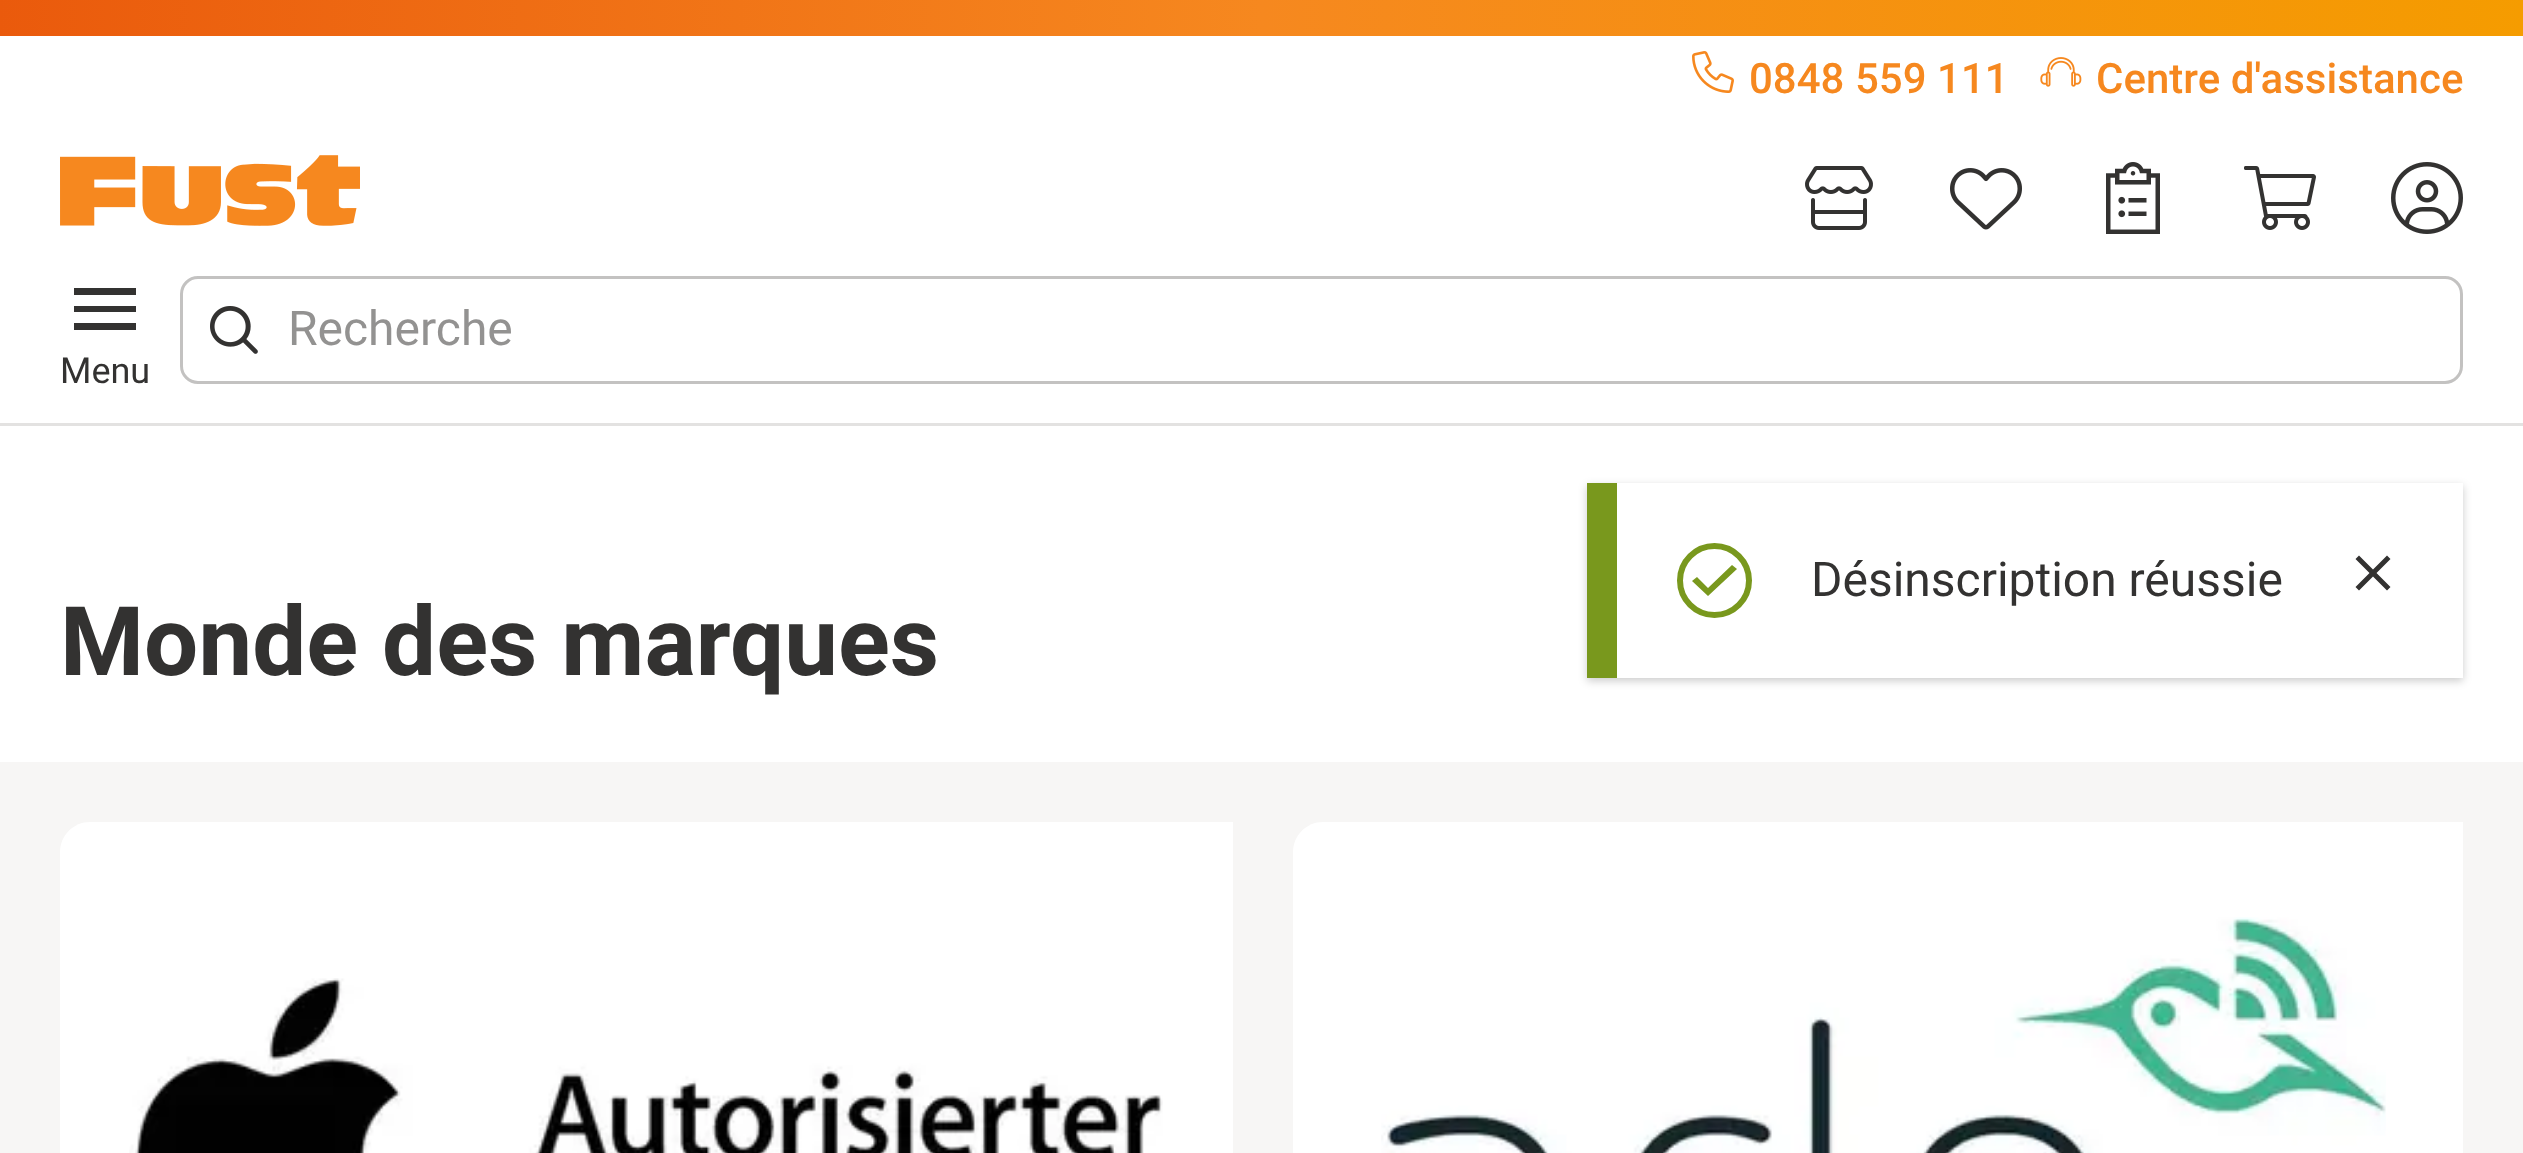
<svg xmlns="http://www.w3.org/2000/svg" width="2523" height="1153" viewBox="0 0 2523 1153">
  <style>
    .t1 { font: 500 42px Roboto; fill: #f6881f; }
    .t2 { font: 48px Roboto; fill: #939291; }
    .t3 { font: 36px Roboto; fill: #333231; }
    .t4 { font: 48px Roboto; fill: #333231; }
    .t5 { font: bold 96px Roboto; fill: #333231; }
  </style>
  <defs>
    <clipPath id="clip1"><path d="M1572 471H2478V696H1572ZM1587 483H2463V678H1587Z" clip-rule="evenodd"/></clipPath>
  </defs>
  <rect width="100%" height="100%" fill="#fff"/>
  <image x="0" y="0" width="2523" height="36" href="images/1.png"/>
  <image x="1692" y="51" width="42" height="42" href="images/2.png"/>
  <text x="1749" y="93" class="t1">0848 559 111</text>
  <image x="2040" y="57" width="42" height="30" href="images/3.png"/>
  <text x="2096" y="93" class="t1">Centre d'assistance</text>
  <image x="60" y="155" width="300" height="71" href="images/4.png"/>
  <rect x="181.5" y="277.5" width="2280" height="105" rx="16.5" fill="none" stroke="#c3c2c1" stroke-width="3"/>
  <image x="210" y="306" width="48" height="48" href="images/5.png"/>
  <text x="288" y="345" class="t2">Recherche</text>
  <path d="M74 330V323H136V330ZM74 312V306H136V312ZM74 295V288H136V295Z" fill="#333231"/>
  <text x="60" y="383" class="t3">Menu</text>
  <image x="1805" y="166" width="68" height="64" href="images/6.png"/>
  <image x="1950" y="168" width="72" height="62" href="images/7.png"/>
  <image x="2106" y="162" width="54" height="72" href="images/8.png"/>
  <image x="2244" y="166" width="72" height="64" href="images/9.png"/>
  <image x="2391" y="162" width="72" height="72" href="images/10.png"/>
  <g clip-path="url(#clip1)">
    <rect x="1587" y="486" width="876" height="195" fill="#00000033" filter="blur(4.5px)"/>
  </g>
  <rect x="1587" y="483" width="30" height="195" fill="#79981d"/>
  <circle cx="1714.5" cy="580.5" r="34.5" fill="none" stroke="#79981d" stroke-width="6"/>
  <path d="M1737 569L1708 596L1692 581L1697 577L1708 588L1732 565Z" fill="#79981d"/>
  <text x="1811" y="596" class="t4">Désinscription réussie</text>
  <path d="M2359 590.5L2355.5 587L2369.5 573L2355.5 559L2359 555.5L2373 569.5L2387 555.5L2390.5 559L2376.5 573L2390.5 587L2387 590.5L2373 576.5Z" fill="#333231"/>
  <rect x="0" y="423" width="2523" height="3" fill="#e3e2e1"/>
  <text x="60" y="675" class="t5">Monde des marques</text>
  <rect x="0" y="762" width="2523" height="391" fill="#f7f6f5"/>
  <path d="M90 822H1233V1153C1233 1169.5 1219.5 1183 1203 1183H60V852C60 835.5 73.5 822 90 822Z" fill="#fff"/>
  <image x="129" y="978" width="1034" height="175" href="images/11.png"/>
  <path d="M1323 822H2463V1153C2463 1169.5 2449.5 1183 2433 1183H1293V852C1293 835.5 1306.5 822 1323 822Z" fill="#fff"/>
  <image x="1381" y="917" width="1005" height="236" href="images/12.png"/>
</svg>
